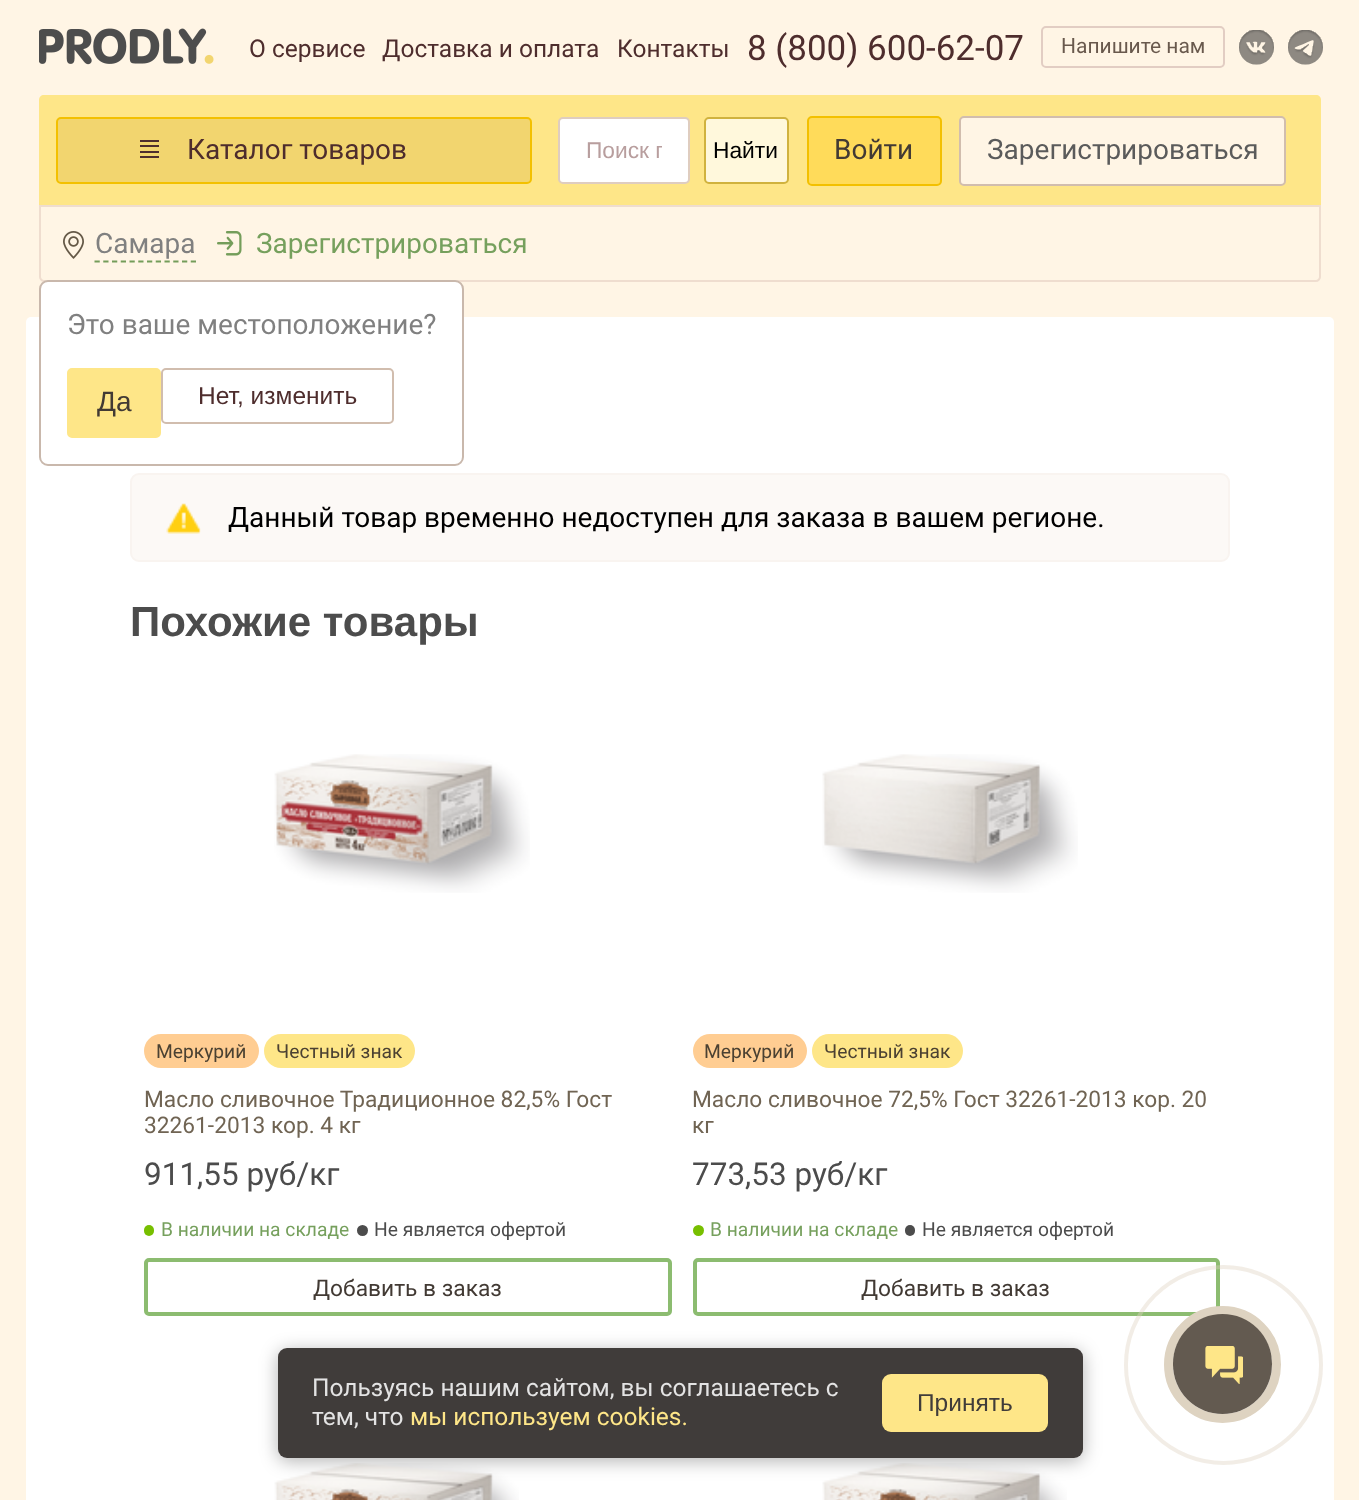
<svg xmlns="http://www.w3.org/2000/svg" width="1359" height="1500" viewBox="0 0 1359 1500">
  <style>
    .t1 { font: 24.5px Roboto; fill: #4e2d2d; }
    .t2 { font: 35px Roboto; fill: #4e2d2d; }
    .t3 { font: 21px Roboto; fill: #69594d; }
    .t4 { font: 28px Roboto; fill: #4e2d2d; }
    .t5 { font: 22.75px Liberation Sans; fill: #b89e9e; }
    .t6 { font: 22.75px Liberation Sans; fill: #000; }
    .t7 { font: 28px Roboto; fill: #423a34; }
    .t8 { font: 28px Roboto; fill: #5b5b5b; }
    .t9 { font: 28px Roboto; fill: #808080; }
    .t10 { font: 28px Liberation Sans; fill: #423a34; }
    .t11 { font: 24.5px Liberation Sans; fill: #4e2d2d; }
    .t12 { font: 28px Roboto; fill: #76a05d; }
    .t13 { font: 28px Roboto; fill: #000; }
    .t14 { font: bold 42px Liberation Sans; fill: #4c4c4c; }
    .t15 { font: 19.25px Roboto; fill: #4b4132; }
    .t16 { font: 22.75px Roboto; fill: #706453; }
    .t17 { font: 31.5px Roboto; fill: #4c4c4c; }
    .t18 { font: 19.25px Roboto; fill: #76a05d; }
    .t19 { font: 19.25px Roboto; fill: #4c4c4c; }
    .t20 { font: 22.75px Roboto; fill: #423a34; }
    .t21 { font: 24.5px Roboto; fill: #e3e3e3; }
    .t22 { font: 24.5px Roboto; fill: #fee688; }
    .t23 { font: 24.5px Liberation Sans; fill: #403c3a; }
  </style>
  <defs>
    <clipPath id="clip1"><rect x="586" y="137" width="76" height="26"/></clipPath>
  </defs>
  <rect width="100%" height="100%" fill="#fff5e5"/>
  <image x="39" y="28" width="175" height="37" href="images/1.png"/>
  <text x="249" y="57" class="t1">О сервисе</text>
  <text x="382" y="57" class="t1">Доставка и оплата</text>
  <text x="617" y="57" class="t1">Контакты</text>
  <text x="747" y="60" class="t2">8 (800) 600-62-07</text>
  <rect x="1042" y="27" width="182" height="40" rx="4" fill="none" stroke="#e2cdc3" stroke-width="2"/>
  <text x="1061" y="53" class="t3">Напишите нам</text>
  <image x="1239" y="30" width="35" height="35" href="images/2.png"/>
  <image x="1288" y="30" width="35" height="35" href="images/3.png"/>
  <path d="M44 95H1316C1319 95 1321 97 1321 100V205H39V100C39 97 41 95 44 95Z" fill="#fee688"/>
  <rect x="57" y="118" width="474" height="65" rx="4" fill="#f2d56f" stroke="#f3c000" stroke-width="2"/>
  <rect x="140" y="140" width="19" height="2" fill="#4e2d2d"/>
  <rect x="140" y="145" width="19" height="2" fill="#4e2d2d"/>
  <rect x="140" y="151" width="19" height="2" fill="#4e2d2d"/>
  <rect x="140" y="156" width="19" height="2" fill="#4e2d2d"/>
  <text x="187" y="159" class="t4">Каталог товаров</text>
  <rect x="559" y="118" width="130" height="65" rx="4" fill="#fff" stroke="#dfcdc0" stroke-width="2"/>
  <g clip-path="url(#clip1)">
    <text x="586" y="158" class="t5">Поиск п</text>
  </g>
  <rect x="705" y="118" width="83" height="65" rx="4" fill="#fff8dc" stroke="#d0b23e" stroke-width="2"/>
  <text x="713" y="158" class="t6">Найти</text>
  <rect x="808" y="117" width="133" height="68" rx="4" fill="#ffdb5a" stroke="#f3c000" stroke-width="2"/>
  <text x="834" y="159" class="t7">Войти</text>
  <rect x="960" y="117" width="325" height="68" rx="4" fill="#fff5e5" stroke="#d1bdae" stroke-width="2"/>
  <text x="987" y="159" class="t8">Зарегистрироваться</text>
  <path d="M40 206H1320V277C1320 279 1318 281 1316 281H44C42 281 40 279 40 277Z" fill="none" stroke="#efddcf" stroke-width="2"/>
  <image x="63" y="231" width="21" height="28" href="images/4.png"/>
  <text x="95" y="253" class="t9">Самара</text>
  <path d="M94.5 261.5H196" fill="none" stroke="#749d5a" stroke-width="1.8" stroke-dasharray="5.25 3.5"/>
  <rect x="26" y="317" width="1308" height="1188" rx="5" fill="#fff"/>
  <rect x="40" y="281" width="423" height="184" rx="8" fill="#fff" stroke="#c9b8ac" stroke-width="2"/>
  <text x="67" y="334" class="t9">Это ваше местоположение?</text>
  <rect x="69" y="370" width="90" height="66" rx="3" fill="#fee688" stroke="#fee688" stroke-width="4"/>
  <text x="97" y="411" class="t10">Да</text>
  <rect x="162" y="369" width="231" height="54" rx="4" fill="none" stroke="#d1bdae" stroke-width="2"/>
  <text x="198" y="404" class="t11">Нет, изменить</text>
  <image x="217" y="231" width="25" height="25" href="images/5.png"/>
  <text x="256" y="253" class="t12">Зарегистрироваться</text>
  <rect x="131" y="474" width="1098" height="87" rx="8" fill="#fcf9f6" stroke="#f9f4f0" stroke-width="2"/>
  <image x="166" y="503" width="35" height="31" href="images/6.png"/>
  <text x="228" y="527" class="t13">Данный товар временно недоступен для заказа в вашем регионе.</text>
  <text x="130" y="636" class="t14">Похожие товары</text>
  <image x="274" y="754" width="256" height="139" href="images/7.png"/>
  <rect x="144" y="1034" width="115" height="34" rx="17" fill="#ffcd92"/>
  <text x="156" y="1058" class="t15">Меркурий</text>
  <rect x="264" y="1034" width="151" height="34" rx="17" fill="#fee688"/>
  <text x="276" y="1058" class="t15">Честный знак</text>
  <text x="144" y="1107" class="t16">Масло сливочное Традиционное 82,5% Гост</text>
  <text x="144" y="1133" class="t16">32261-2013 кор. 4 кг</text>
  <text x="144" y="1185" class="t17">911,55 руб/кг</text>
  <rect x="144" y="1225" width="10" height="11" rx="5" fill="#77bf00"/>
  <text x="161" y="1236" class="t18">В наличии на складе</text>
  <circle cx="362.5" cy="1230.5" r="5.5" fill="#4c4c4c"/>
  <text x="374" y="1236" class="t19">Не является офертой</text>
  <rect x="146" y="1260" width="524" height="54" rx="3" fill="none" stroke="#8cbc70" stroke-width="4"/>
  <text x="313" y="1296" class="t20">Добавить в заказ</text>
  <image x="822" y="754" width="256" height="139" href="images/8.png"/>
  <rect x="693" y="1034" width="114" height="34" rx="17" fill="#ffcd92"/>
  <text x="704" y="1058" class="t15">Меркурий</text>
  <rect x="812" y="1034" width="151" height="34" rx="17" fill="#fee688"/>
  <text x="824" y="1058" class="t15">Честный знак</text>
  <text x="692" y="1107" class="t16">Масло сливочное 72,5% Гост 32261-2013 кор. 20</text>
  <text x="692" y="1133" class="t16">кг</text>
  <text x="692" y="1185" class="t17">773,53 руб/кг</text>
  <circle cx="698.5" cy="1230.5" r="5.5" fill="#77bf00"/>
  <text x="710" y="1236" class="t18">В наличии на складе</text>
  <rect x="905" y="1225" width="10" height="11" rx="5" fill="#4c4c4c"/>
  <text x="922" y="1236" class="t19">Не является офертой</text>
  <rect x="695" y="1260" width="523" height="54" rx="3" fill="none" stroke="#8cbc70" stroke-width="4"/>
  <text x="861" y="1296" class="t20">Добавить в заказ</text>
  <image x="274" y="1463" width="245" height="37" href="images/9.png"/>
  <image x="822" y="1463" width="245" height="37" href="images/10.png"/>
  <rect x="278" y="1351" width="805" height="110" rx="9" fill="#0000004d" filter="blur(9px)"/>
  <rect x="278" y="1348" width="805" height="110" rx="9" fill="#403c3a"/>
  <text x="312" y="1396" class="t21">Пользуясь нашим сайтом, вы соглашаетесь с</text>
  <text x="312" y="1425" class="t21">тем, что</text>
  <text x="410" y="1425" class="t22">мы используем cookies.</text>
  <rect x="882" y="1374" width="166" height="58" rx="9" fill="#fee688"/>
  <text x="917" y="1411" class="t23">Принять</text>
  <circle cx="1222.5" cy="1364.5" r="54" fill="none" stroke="#ded3c1" stroke-width="9"/>
  <rect x="1173" y="1314" width="99" height="100" rx="49.5" fill="#635a50"/>
  <image x="1205" y="1346" width="38" height="38" href="images/11.png"/>
  <rect x="1126" y="1267" width="195" height="196" rx="97.5" fill="none" stroke="#ded3c166" stroke-width="4"/>
</svg>
